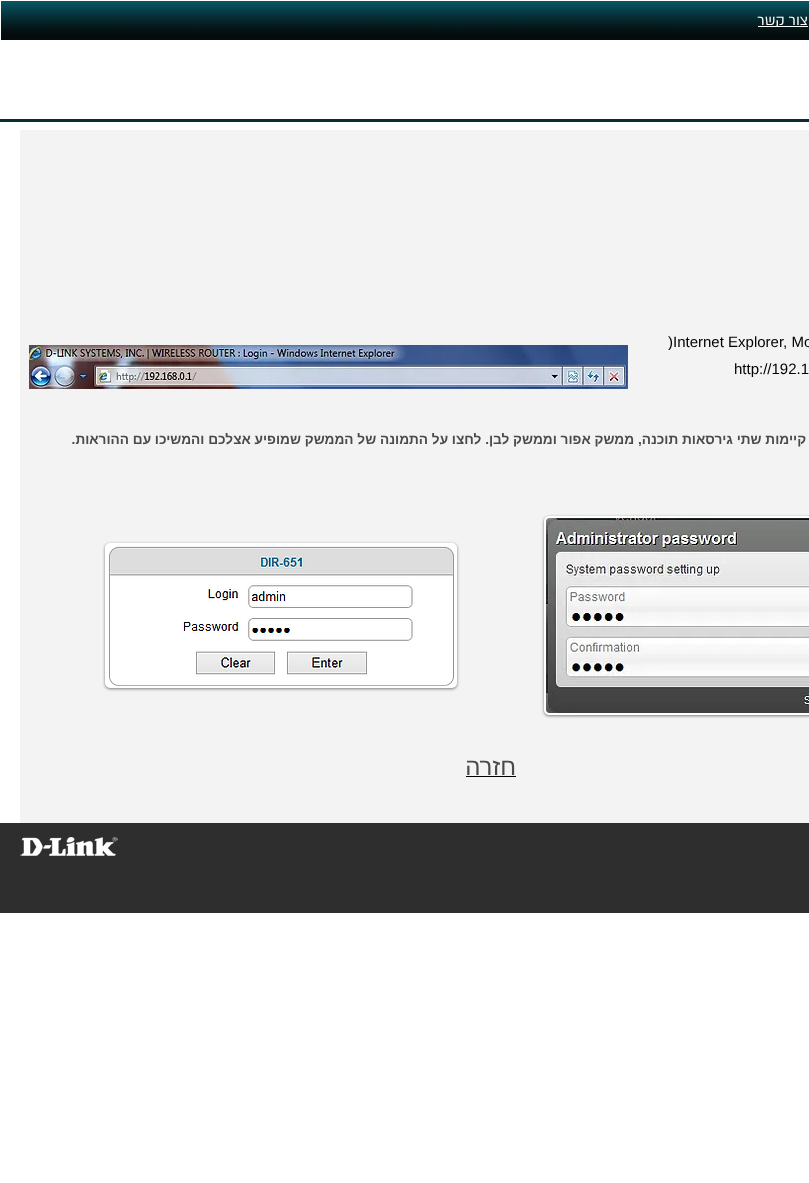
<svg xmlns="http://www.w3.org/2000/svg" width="809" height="1183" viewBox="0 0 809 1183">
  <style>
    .t1 { font: 16px 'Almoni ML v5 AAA'; direction: rtl; fill: #fff; }
    .t2 { font: 15px Liberation Sans; fill: #000; }
    .t3 { font: bold 13.65px Liberation Sans; direction: rtl; fill: #4a4a4a; }
    .t4 { font: 24px Liberation Sans; direction: rtl; fill: #4a4a4a; }
  </style>
  <rect width="100%" height="100%" fill="#fff"/>
  <image x="1" y="1" width="808" height="39" href="images/1.png"/>
  <rect x="758" y="26" width="50" height="1" fill="#fff"/>
  <text x="808" y="25" class="t1">צור קשר</text>
  <rect x="0" y="119" width="809" height="3" fill="#062c35"/>
  <rect x="20" y="130" width="789" height="693" fill="#f3f3f3"/>
  <text x="668" y="347" class="t2">)Internet Explorer, Mo</text>
  <text x="734" y="374" class="t2">http://192.1</text>
  <image x="29" y="345" width="599" height="44" href="images/2.png"/>
  <text x="917" y="444" class="t3">שימו לב! לנתב זה קיימות שתי גירסאות תוכנה, ממשק אפור וממשק לבן. לחצו על התמונה של הממשק שמופיע אצלכם והמשיכו עם ההוראות.</text>
  <rect x="544" y="517" width="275" height="199" rx="5" fill="#00000080" filter="blur(1.5px)"/>
  <rect x="545" y="517" width="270" height="197" rx="4" fill="#fff" stroke="#fff" stroke-width="2"/>
  <image x="546" y="518" width="263" height="195" href="images/3.png"/>
  <rect x="105" y="544" width="352" height="145" rx="5" fill="#00000080" filter="blur(1.5px)"/>
  <rect x="106" y="544" width="350" height="143" rx="4" fill="#fff" stroke="#fff" stroke-width="2"/>
  <image x="109" y="546" width="345" height="140" href="images/4.png"/>
  <text x="516" y="775" class="t4">חזרה</text>
  <rect x="466" y="776" width="50" height="1" fill="#000"/>
  <rect x="0" y="823" width="809" height="90" fill="#2f2e2e"/>
  <image x="20" y="837" width="98" height="19" href="images/5.png"/>
</svg>
